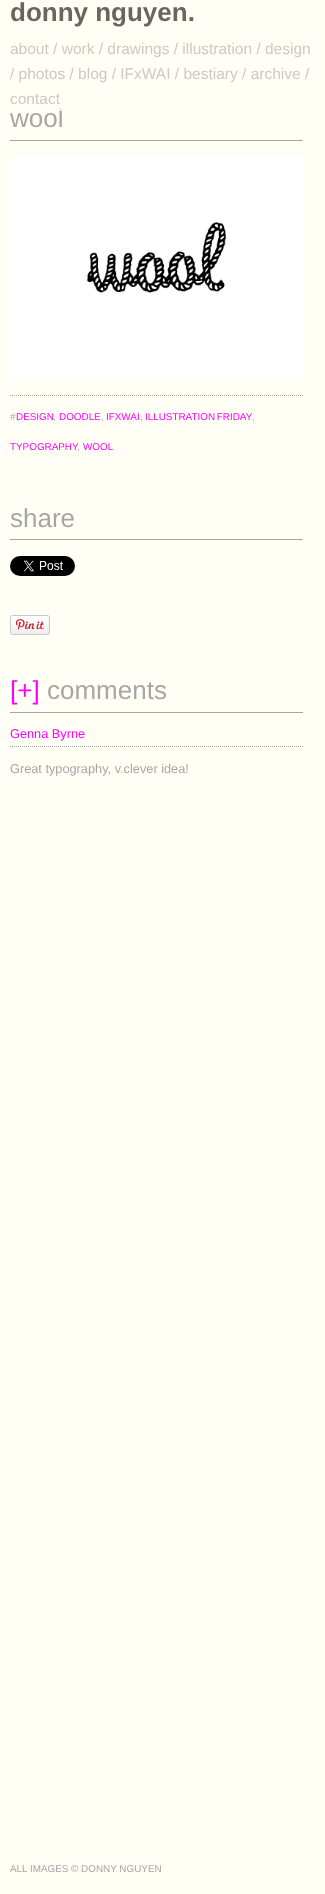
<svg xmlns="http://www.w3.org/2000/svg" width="325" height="1894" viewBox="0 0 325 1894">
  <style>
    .t1 { font: 26px Liberation Sans; fill: #a6a6a6; }
    .t2 { font: bold 26px Liberation Sans; fill: #666662; }
    .t3 { font: 15.5px Liberation Sans; fill: #cacac6; }
    .t4 { font: 9.9px Liberation Sans; fill: #a6a6a6; }
    .t5 { font: 9.9px Liberation Sans; fill: #f0f; }
    .t6 { font: 26px Liberation Sans; fill: #f0f; }
    .t7 { font: 12.75px Liberation Sans; fill: #f0f; }
    .t8 { font: 12.75px Liberation Sans; fill: #a6a6a6; }
  </style>
  <rect width="100%" height="100%" fill="#fffff6"/>
  <text x="10" y="127" class="t1">wool</text>
  <rect x="59" y="108" width="3" height="3" fill="#fffff6bf"/>
  <text x="10" y="21" class="t2">donny nguyen.</text>
  <text x="10" y="54" class="t3">about / work / drawings / illustration / design</text>
  <text x="10" y="79" class="t3">/ photos / blog / IFxWAI / bestiary / archive /</text>
  <text x="10" y="104" class="t3">contact</text>
  <rect x="10" y="140" width="293" height="1" fill="#a6a6a6"/>
  <image x="10" y="157" width="293" height="219" href="images/1.png"/>
  <path d="M10 395.5H303" fill="none" stroke="#a6a6a6" stroke-dasharray="1 1"/>
  <text x="10" y="420" class="t4">#</text>
  <text x="16" y="420" class="t5">DESIGN</text>
  <text x="53" y="420" class="t4">,</text>
  <text x="59" y="420" class="t5">DOODLE</text>
  <text x="101" y="420" class="t4">,</text>
  <text x="106" y="420" class="t5">IFXWAI</text>
  <text x="140" y="420" class="t4">,</text>
  <text x="145" y="420" word-spacing="-1" class="t5">ILLUSTRATION FRIDAY</text>
  <text x="252" y="420" class="t4">,</text>
  <text x="10" y="450" class="t5">TYPOGRAPHY</text>
  <text x="83" y="450" class="t5">WOOL</text>
  <text x="77" y="450" class="t4">,</text>
  <rect x="10" y="539" width="293" height="1" fill="#a6a6a6"/>
  <text x="10" y="527" class="t1">share</text>
  <image x="10" y="556" width="65" height="20" href="images/2.png"/>
  <image x="10" y="615" width="40" height="20" href="images/3.png"/>
  <rect x="10" y="712" width="293" height="1" fill="#a6a6a6"/>
  <text x="10" y="699" class="t6">[+]</text>
  <text x="47" y="699" class="t1">comments</text>
  <path d="M10 746.5H303" fill="none" stroke="#a6a6a6" stroke-dasharray="1 1"/>
  <text x="10" y="738" class="t7">Genna Byrne</text>
  <text x="10" y="773" class="t8">Great typography, v.clever idea!</text>
  <text x="10" y="1872" class="t4">ALL IMAGES © DONNY NGUYEN</text>
</svg>
